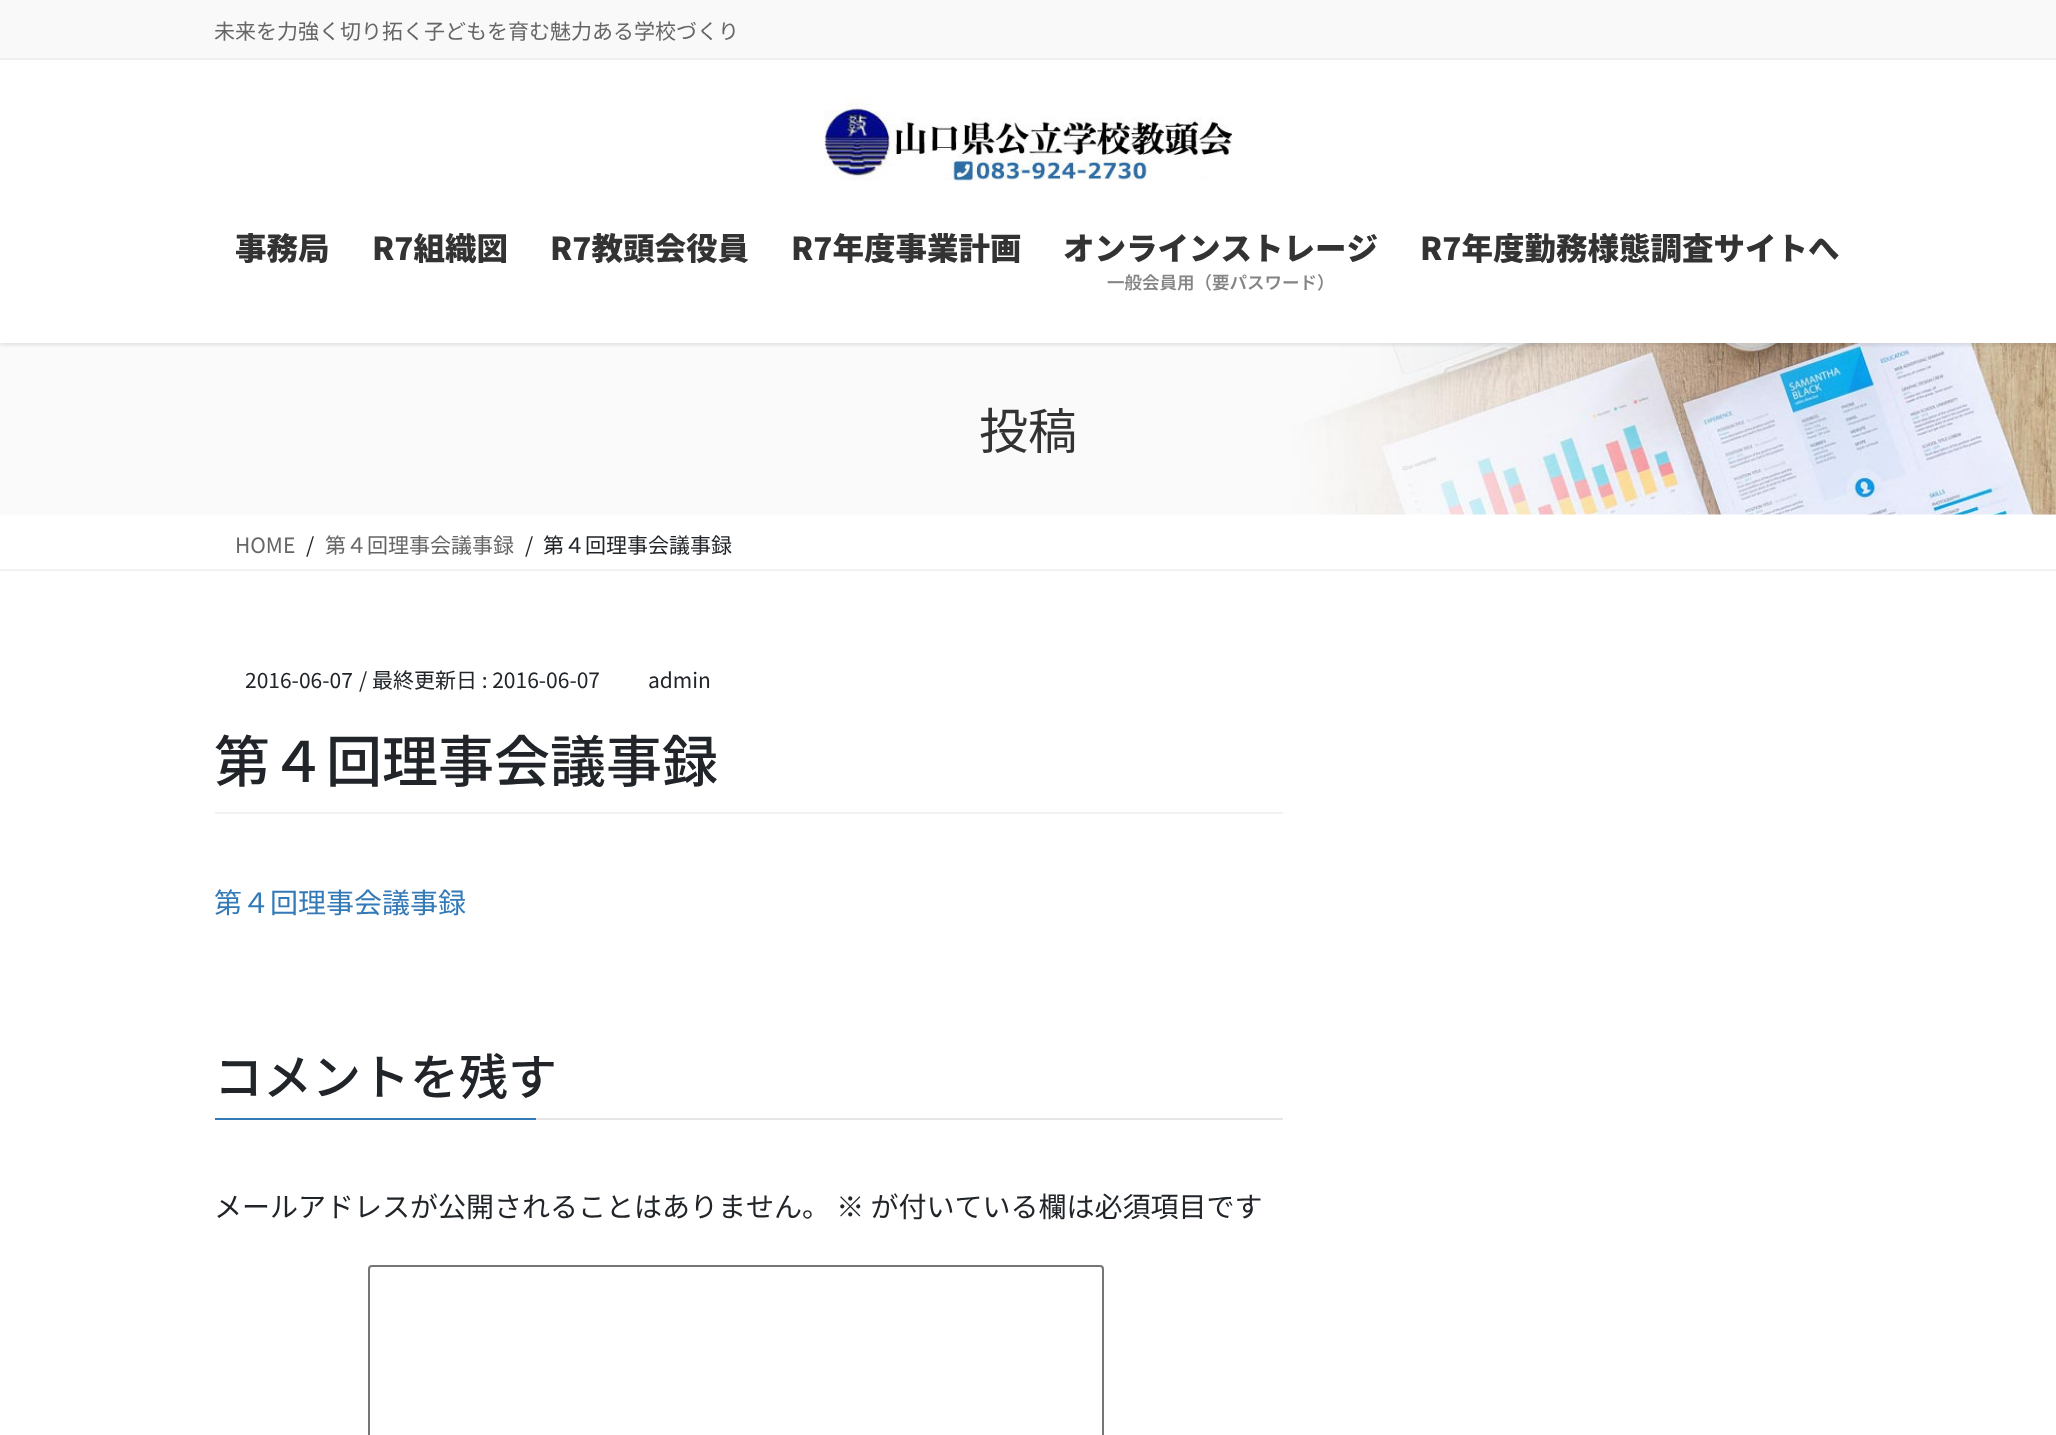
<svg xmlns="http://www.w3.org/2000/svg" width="2056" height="1435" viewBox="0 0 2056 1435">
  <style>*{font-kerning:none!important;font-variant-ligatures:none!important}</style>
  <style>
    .t1 { font: 21px Noto Sans JP; fill: #666; }
    .t2 { font: 900 31.5px Noto Sans JP; fill: #333; }
    .t3 { font: 600 17.5px Noto Sans JP; fill: #858585; }
    .t4 { font: 49px Noto Sans JP; fill: #333; }
    .t5 { font: 21px Noto Sans JP; fill: #212529; }
    .t6 { font: 500 56px Noto Sans JP; fill: #212529; }
    .t7 { font: 28px Noto Sans JP; fill: #337ab7; }
    .t8 { font: 500 49px Noto Sans JP; fill: #212529; }
    .t9 { font: 28px Noto Sans JP; fill: #212529; }
  </style>
  <defs>
    <clipPath id="clip1"><rect x="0" y="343" width="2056" height="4"/></clipPath>
  </defs>
  <rect width="100%" height="100%" fill="#fff"/>
  <image x="0" y="343" width="2056" height="172" href="images/2.png"/>
  <g clip-path="url(#clip1)">
    <rect x="0" y="-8" width="2056" height="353" fill="#0000001a" filter="blur(2.5px)"/>
  </g>
  <rect x="0" y="0" width="2056" height="58" fill="#f9f9f9"/>
  <rect x="0" y="58" width="2056" height="2" fill="#efefef"/>
  <text x="214" y="39" class="t1">未来を力強く切り拓く子どもを育む魅力ある学校づくり</text>
  <image x="824" y="98" width="408" height="83" href="images/1.png"/>
  <text x="235" y="260" class="t2">事務局</text>
  <text x="372" y="260" class="t2">R7組織図</text>
  <text x="550" y="260" class="t2">R7教頭会役員</text>
  <text x="791" y="260" class="t2">R7年度事業計画</text>
  <text x="1063" y="260" class="t2">オンラインストレージ</text>
  <text x="1107" y="289" class="t3">一般会員用（要パスワード）</text>
  <text x="1420" y="260" class="t2">R7年度勤務様態調査サイトへ</text>
  <text x="979" y="449" class="t4">投稿</text>
  <rect x="0" y="569" width="2056" height="2" fill="#f2f2f2"/>
  <text x="235" y="553" class="t1">HOME</text>
  <text x="306" y="553" class="t5">/</text>
  <text x="325" y="553" class="t1">第４回理事会議事録</text>
  <text x="525" y="553" class="t5">/</text>
  <text x="543" y="553" class="t5">第４回理事会議事録</text>
  <rect x="215" y="812" width="1068" height="2" fill="#f2f2f2"/>
  <text x="245" y="688" class="t5">2016-06-07</text>
  <text x="359" y="688" class="t5">/ 最終更新日 : 2016-06-07</text>
  <text x="648" y="688" class="t5">admin</text>
  <text x="214" y="782" class="t6">第４回理事会議事録</text>
  <text x="214" y="913" class="t7">第４回理事会議事録</text>
  <rect x="536" y="1118" width="747" height="2" fill="#e6e6e6"/>
  <text x="214" y="1095" class="t8">コメントを残す</text>
  <rect x="215" y="1118" width="321" height="2" fill="#337ab7"/>
  <text x="214" y="1217" class="t9">メールアドレスが公開されることはありません。 ※ が付いている欄は必須項目です</text>
  <rect x="369" y="1266" width="734" height="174" rx="3" fill="none" stroke="#767676" stroke-width="2"/>
</svg>
